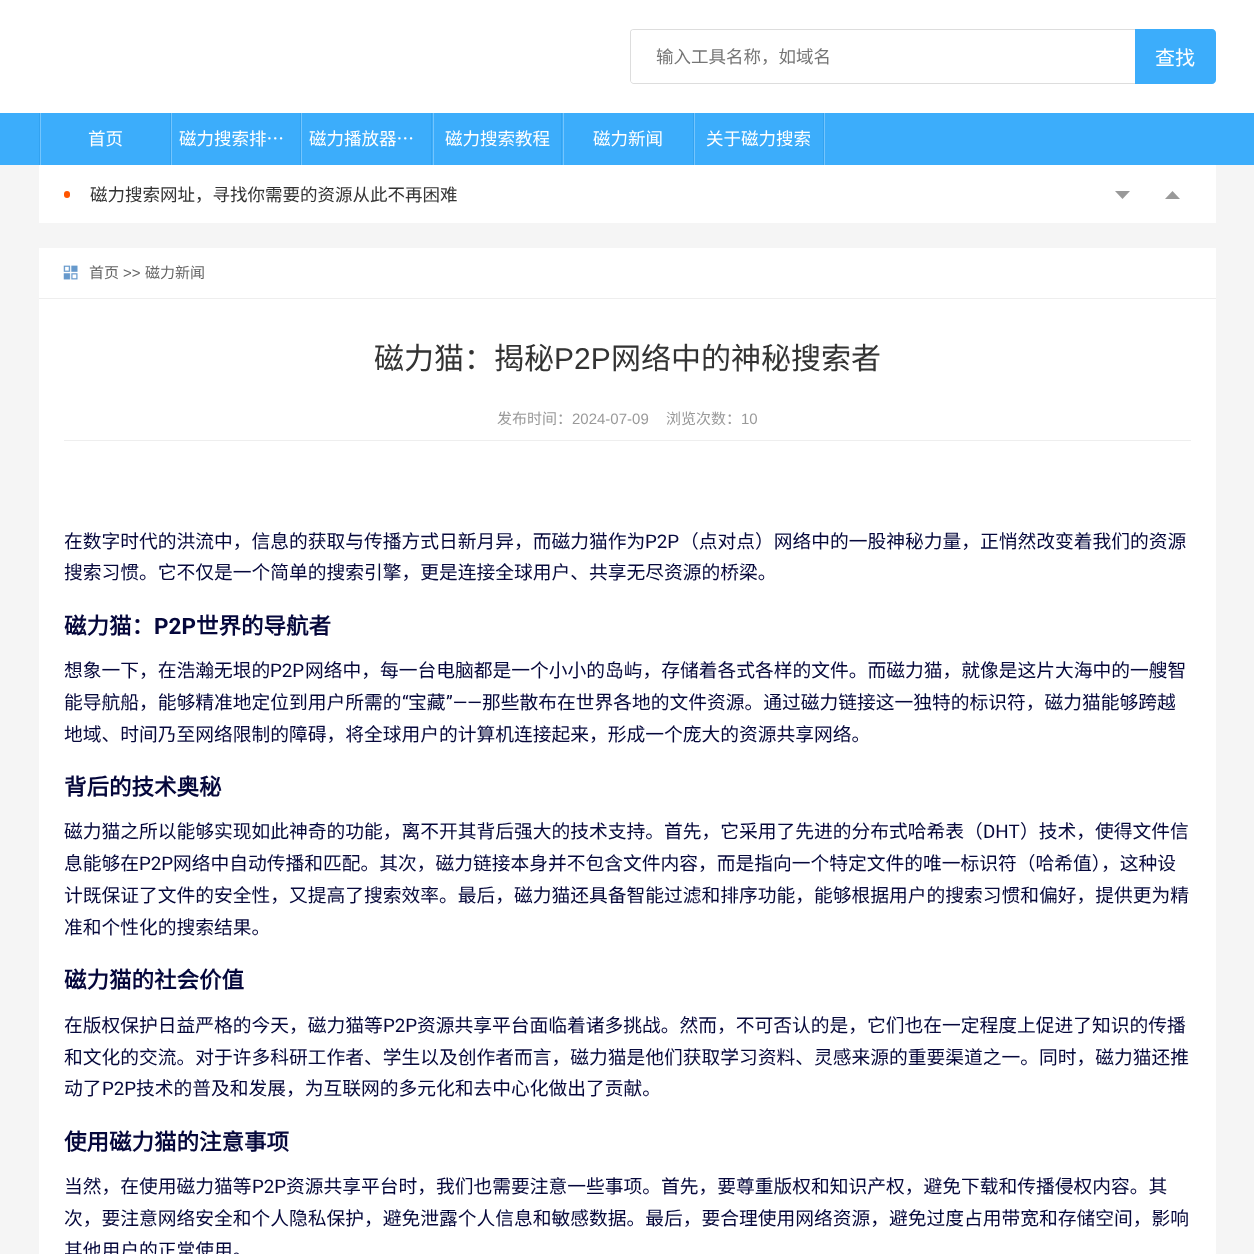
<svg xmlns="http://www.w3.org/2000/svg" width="1254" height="1254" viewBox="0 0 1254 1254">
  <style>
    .t1 { font: 17.5px Noto Sans CJK SC; fill: #757575; }
    .t2 { font: 20px Noto Sans CJK SC; fill: #fff; }
    .t3 { font: 17.5px Noto Sans CJK SC; fill: #fff; }
    .t4 { font: 17.5px Noto Sans CJK SC; fill: #333; }
    .t5 { font: 15px Noto Sans CJK SC; fill: #666; }
    .t6 { font: 15px Liberation Sans; fill: #666; }
    .t7 { font: 30px Noto Sans CJK SC; fill: #333; }
    .t8 { font: 30px Liberation Sans; fill: #333; }
    .t9 { font: 15px Noto Sans CJK SC; fill: #999; }
    .t10 { font: 15px Liberation Sans; fill: #999; }
    .t11 { font: 18.75px Noto Sans CJK SC; fill: #05073b; }
    .t12 { font: 18.75px Roboto; fill: #05073b; }
    .t13 { font: bold 22.5px Noto Sans CJK SC; fill: #05073b; }
    .t14 { font: bold 22.5px Roboto; fill: #05073b; }
  </style>
  <rect width="100%" height="100%" fill="#f5f5f5"/>
  <rect x="0" y="0" width="1254" height="113" fill="#fff"/>
  <path d="M634 29H1135V84H634C632 84 630 82 630 80V32C630 30 632 29 634 29ZM634 30H1135V82H634C632 82 631 81 631 80V32C631 31 632 30 634 30Z" fill="#ddd" fill-rule="evenodd"/>
  <path d="M633.5 30H1135V83H633.5C632 83 631 82 631 80.5V32.5C631 31 632 30 633.5 30Z" fill="#fff"/>
  <text x="656" y="63" class="t1">输入工具名称，如域名</text>
  <path d="M1135 29H1212C1214 29 1216 31 1216 33V80C1216 82 1214 84 1212 84H1135Z" fill="#3cadfb"/>
  <text x="1155" y="65" class="t2">查找</text>
  <rect x="0" y="113" width="1254" height="52" fill="#3cadfb"/>
  <rect x="39" y="113" width="1" height="52" fill="#32a2f0"/>
  <rect x="170" y="113" width="1" height="52" fill="#32a2f0"/>
  <rect x="40" y="113" width="1" height="52" fill="#74c5fd"/>
  <text x="88" y="145" class="t3">首页</text>
  <rect x="300" y="113" width="1" height="52" fill="#32a2f0"/>
  <rect x="171" y="113" width="1" height="52" fill="#74c5fd"/>
  <text x="179" y="145" class="t3">磁力搜索排…</text>
  <rect x="431" y="113" width="1" height="52" fill="#32a2f0"/>
  <rect x="301" y="113" width="1" height="52" fill="#74c5fd"/>
  <text x="309" y="145" class="t3">磁力播放器…</text>
  <rect x="561" y="113" width="1" height="52" fill="#32a2f0"/>
  <rect x="433" y="113" width="1" height="52" fill="#74c5fd"/>
  <text x="445" y="145" class="t3">磁力搜索教程</text>
  <rect x="693" y="113" width="1" height="52" fill="#32a2f0"/>
  <rect x="563" y="113" width="1" height="52" fill="#74c5fd"/>
  <text x="593" y="145" class="t3">磁力新闻</text>
  <rect x="823" y="113" width="1" height="52" fill="#32a2f0"/>
  <rect x="694" y="113" width="1" height="52" fill="#74c5fd"/>
  <text x="706" y="145" class="t3">关于磁力搜索</text>
  <rect x="824" y="113" width="1" height="52" fill="#74c5fd"/>
  <rect x="39" y="165" width="1177" height="58" fill="#fff"/>
  <rect x="64" y="191" width="6" height="7" rx="3" fill="#f50"/>
  <text x="90" y="201" class="t4">磁力搜索网址，寻找你需要的资源从此不再困难</text>
  <path d="M1115 191H1130L1122.5 199Z" fill="#999"/>
  <path d="M1180 199H1165L1172.5 191Z" fill="#999"/>
  <rect x="39" y="248" width="1177" height="1006" fill="#fff"/>
  <rect x="39" y="298" width="1177" height="1" fill="#eee"/>
  <image x="63" y="265" width="15" height="15" href="images/1.png"/>
  <text x="89" y="278" class="t5">首页</text>
  <text x="123" y="278" class="t6">&gt;&gt;</text>
  <text x="145" y="278" class="t5">磁力新闻</text>
  <text x="374" y="369" class="t7">磁力猫：揭秘</text>
  <text x="554" y="369" class="t8">P2P</text>
  <text x="611" y="369" class="t7">网络中的神秘搜索者</text>
  <rect x="64" y="440" width="1127" height="1" fill="#eee"/>
  <text x="497" y="424" class="t9">发布时间：</text>
  <text x="572" y="424" class="t10">2024-07-09</text>
  <text x="666" y="424" class="t9">浏览次数：</text>
  <text x="741" y="424" class="t10">10</text>
  <text x="64" y="548" class="t11">在数字时代的洪流中，信息的获取与传播方式日新月异，而磁力猫作为</text>
  <text x="645" y="548" class="t12">P2P</text>
  <text x="680" y="548" class="t11">（点对点）网络中的一股神秘力量，正悄然改变着我们的资源</text>
  <text x="64" y="579" class="t11">搜索习惯。它不仅是一个简单的搜索引擎，更是连接全球用户、共享无尽资源的桥梁。</text>
  <text x="64" y="634" class="t13">磁力猫：</text>
  <text x="154" y="634" class="t14">P2P</text>
  <text x="196" y="634" class="t13">世界的导航者</text>
  <text x="64" y="677" class="t11">想象一下，在浩瀚无垠的</text>
  <text x="270" y="677" class="t12">P2P</text>
  <text x="305" y="677" class="t11">网络中，每一台电脑都是一个小小的岛屿，存储着各式各样的文件。而磁力猫，就像是这片大海中的一艘智</text>
  <text x="64" y="709" class="t11">能导航船，能够精准地定位到用户所需的</text>
  <text x="402" y="709" class="t12">“</text>
  <text x="408" y="709" class="t11">宝藏</text>
  <text x="446" y="709" class="t12">”——</text>
  <text x="482" y="709" class="t11">那些散布在世界各地的文件资源。通过磁力链接这一独特的标识符，磁力猫能够跨越</text>
  <text x="64" y="741" class="t11">地域、时间乃至网络限制的障碍，将全球用户的计算机连接起来，形成一个庞大的资源共享网络。</text>
  <text x="64" y="795" class="t13">背后的技术奥秘</text>
  <text x="64" y="838" class="t11">磁力猫之所以能够实现如此神奇的功能，离不开其背后强大的技术支持。首先，它采用了先进的分布式哈希表（</text>
  <text x="983" y="838" class="t12">DHT</text>
  <text x="1020" y="838" class="t11">）技术，使得文件信</text>
  <text x="64" y="870" class="t11">息能够在</text>
  <text x="139" y="870" class="t12">P2P</text>
  <text x="173" y="870" class="t11">网络中自动传播和匹配。其次，磁力链接本身并不包含文件内容，而是指向一个特定文件的唯一标识符（哈希值），这种设</text>
  <text x="64" y="902" class="t11">计既保证了文件的安全性，又提高了搜索效率。最后，磁力猫还具备智能过滤和排序功能，能够根据用户的搜索习惯和偏好，提供更为精</text>
  <text x="64" y="934" class="t11">准和个性化的搜索结果。</text>
  <text x="64" y="988" class="t13">磁力猫的社会价值</text>
  <text x="64" y="1032" class="t11">在版权保护日益严格的今天，磁力猫等</text>
  <text x="383" y="1032" class="t12">P2P</text>
  <text x="417" y="1032" class="t11">资源共享平台面临着诸多挑战。然而，不可否认的是，它们也在一定程度上促进了知识的传播</text>
  <text x="64" y="1064" class="t11">和文化的交流。对于许多科研工作者、学生以及创作者而言，磁力猫是他们获取学习资料、灵感来源的重要渠道之一。同时，磁力猫还推</text>
  <text x="64" y="1095" class="t11">动了</text>
  <text x="102" y="1095" class="t12">P2P</text>
  <text x="136" y="1095" class="t11">技术的普及和发展，为互联网的多元化和去中心化做出了贡献。</text>
  <text x="64" y="1150" class="t13">使用磁力猫的注意事项</text>
  <text x="64" y="1193" class="t11">当然，在使用磁力猫等</text>
  <text x="252" y="1193" class="t12">P2P</text>
  <text x="286" y="1193" class="t11">资源共享平台时，我们也需要注意一些事项。首先，要尊重版权和知识产权，避免下载和传播侵权内容。其</text>
  <text x="64" y="1225" class="t11">次，要注意网络安全和个人隐私保护，避免泄露个人信息和敏感数据。最后，要合理使用网络资源，避免过度占用带宽和存储空间，影响</text>
  <text x="64" y="1257" class="t11">其他用户的正常使用。</text>
</svg>
